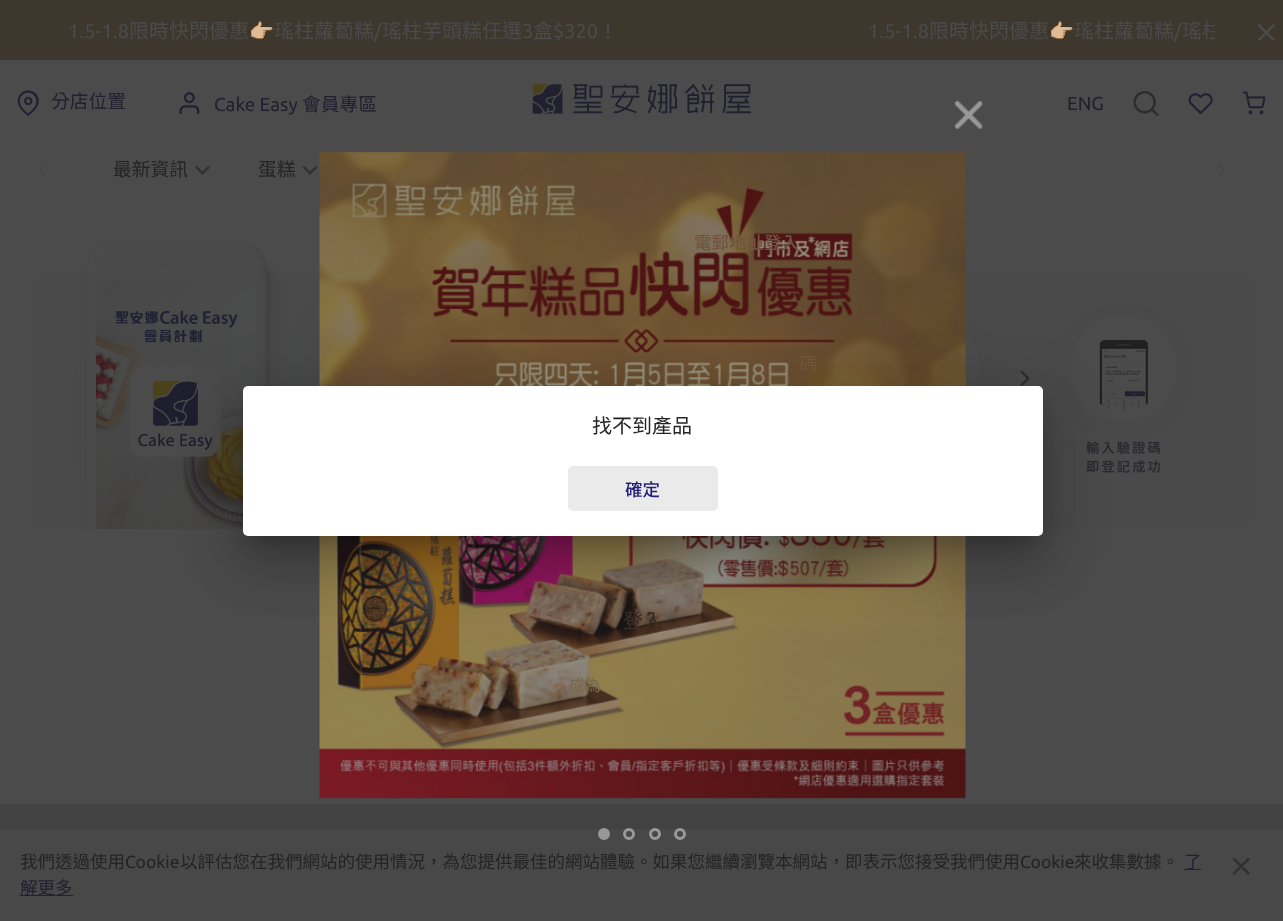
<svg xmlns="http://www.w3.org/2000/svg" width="1283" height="921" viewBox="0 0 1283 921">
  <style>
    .t1 { font: 20px Ubuntu; fill: #4b4b4b; }
    .t2 { font: 20px Noto Sans TC; fill: #4b4b4b; }
    .t3 { font: 20px Noto Color Emoji; fill: #4b4b4b; }
    .t4 { font: 18.75px Noto Sans TC; fill: #222031; }
    .t5 { font: 18.75px Ubuntu; fill: #222031; }
    .t6 { font: 18.75px Noto Sans TC; fill: #242424; }
    .t7 { font: 500 17.5px Noto Sans TC; fill: #705440; }
    .t8 { font: 18.75px Noto Sans TC; fill: #735a3d; }
    .t9 { font: 500 20px Noto Sans TC; fill: #3b2d24; }
    .t10 { font: 500 16px Noto Sans TC; fill: #7a6a51; }
    .t11 { font: 17.5px Noto Sans TC; fill: #242424; }
    .t12 { font: 17.5px Ubuntu; fill: #242424; }
    .t13 { font: 17.5px Noto Sans TC; fill: #222031; }
    .t14 { font: 20px Noto Sans TC; fill: #242424; }
    .t15 { font: 500 17.5px Noto Sans TC; fill: #231e77; }
  </style>
  <defs>
    <clipPath id="clip1"><rect x="69" y="15" width="1146" height="30"/></clipPath>
  </defs>
  <rect width="100%" height="100%" fill="#4b4b4b"/>
  <rect x="0" y="0" width="1283" height="60" fill="#3d372e"/>
  <text x="68" y="38" class="t1">1.5-1.8</text>
  <text x="129" y="38" class="t2">限時快閃優惠</text>
  <text x="249" y="38" class="t3">👉🏼</text>
  <text x="274" y="38" class="t2">瑤柱蘿蔔糕</text>
  <text x="374" y="38" class="t1">/</text>
  <text x="382" y="38" class="t2">瑤柱芋頭糕任選</text>
  <text x="522" y="38" class="t1">3</text>
  <text x="533" y="38" class="t2">盒</text>
  <text x="553" y="38" class="t1">$320</text>
  <text x="598" y="38" class="t2">！</text>
  <text x="868" y="38" class="t1">1.5-1.8</text>
  <text x="929" y="38" class="t2">限時快閃優惠</text>
  <text x="1049" y="38" class="t3">👉🏼</text>
  <text x="1074" y="38" class="t2">瑤柱蘿蔔糕</text>
  <text x="1174" y="38" class="t1">/</text>
  <g clip-path="url(#clip1)">
    <text x="1182" y="38" class="t2">瑤柱</text>
  </g>
  <image x="1257" y="23" width="18" height="19" href="images/1.png"/>
  <image x="17" y="90" width="22" height="26" href="images/2.png"/>
  <text x="51" y="108" class="t4">分店位置</text>
  <image x="179" y="92" width="21" height="22" href="images/3.png"/>
  <text x="214" y="111" class="t5">Cake Easy</text>
  <text x="302" y="111" class="t4">會員專區</text>
  <image x="532" y="83" width="219" height="31" href="images/4.png"/>
  <text x="1067" y="110" class="t5">ENG</text>
  <image x="1133" y="90" width="26" height="26" href="images/5.png"/>
  <image x="1188" y="93" width="25" height="21" href="images/6.png"/>
  <image x="1243" y="91" width="23" height="24" href="images/7.png"/>
  <image x="38" y="163" width="9" height="14" href="images/8.png"/>
  <text x="113" y="176" class="t6">最新資訊</text>
  <image x="195" y="165" width="15" height="10" href="images/9.png"/>
  <text x="258" y="176" class="t6">蛋糕</text>
  <image x="302" y="165" width="16" height="10" href="images/10.png"/>
  <image x="1217" y="163" width="9" height="14" href="images/11.png"/>
  <image x="954" y="101" width="29" height="29" href="images/12.png"/>
  <image x="30" y="243" width="1224" height="286" href="images/14.png"/>
  <image x="319" y="151" width="647" height="648" href="images/13.png"/>
  <rect x="0" y="804" width="1283" height="25" fill="#424243"/>
  <rect x="0" y="829" width="1283" height="92" fill="#484848"/>
  <circle cx="604" cy="834" r="4.5" fill="#999" stroke="#999" stroke-width="3"/>
  <circle cx="629" cy="834" r="4.5" fill="none" stroke="#999" stroke-width="3"/>
  <circle cx="655" cy="834" r="4.5" fill="none" stroke="#999" stroke-width="3"/>
  <circle cx="680" cy="834" r="4.5" fill="none" stroke="#999" stroke-width="3"/>
  <text x="694" y="249" class="t7">電郵地址登入</text>
  <text x="799" y="371" class="t8">碼</text>
  <text x="623" y="628" class="t9">登入</text>
  <text x="569" y="691" class="t10">成為</text>
  <text x="20" y="868" class="t11">我們透過使用</text>
  <text x="125" y="868" class="t12">Cookie</text>
  <text x="180" y="868" class="t11">以評估您在我們網站的使用情況，為您提供最佳的網站體驗。如果您繼續瀏覽本網站，即表示您接受我們使用</text>
  <text x="1020" y="868" class="t12">Cookie</text>
  <text x="1074" y="868" class="t11">來收集數據。</text>
  <rect x="1184" y="869" width="17" height="1" fill="#222031"/>
  <text x="1184" y="868" class="t13">了</text>
  <rect x="20" y="895" width="53" height="1" fill="#222031"/>
  <text x="20" y="894" class="t13">解更多</text>
  <image x="1232" y="857" width="18" height="18" href="images/15.png"/>
  <rect x="233" y="388" width="820" height="170" rx="15" fill="#0000001f" filter="blur(29px)"/>
  <rect x="239" y="413" width="807" height="157" rx="9" fill="#00000024" filter="blur(24px)"/>
  <rect x="251" y="409" width="783" height="132" fill="#00000033" filter="blur(9.5px)"/>
  <rect x="243" y="386" width="800" height="150" rx="5" fill="#fff"/>
  <text x="592" y="433" class="t14">找不到產品</text>
  <rect x="568" y="466" width="150" height="45" rx="5" fill="#eaeaea"/>
  <text x="625" y="496" class="t15">確定</text>
</svg>
